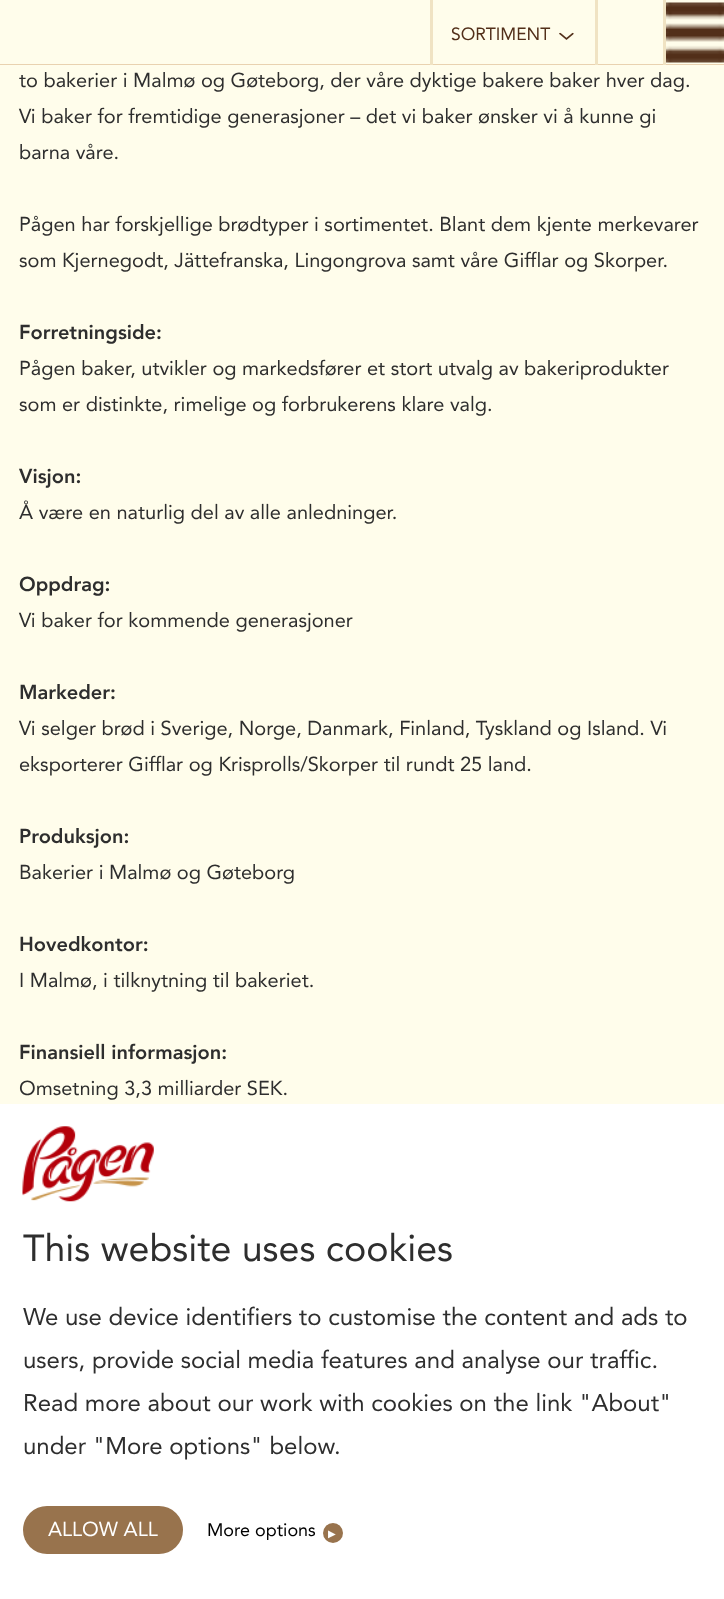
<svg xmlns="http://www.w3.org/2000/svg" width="724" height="1599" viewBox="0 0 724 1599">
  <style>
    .t1 { font: 17.5px avenir; fill: #522f19; }
    .t2 { font: 20px avenir; fill: #2e2e2e; }
    .t3 { font: 900 20px avenir; fill: #2e2e2e; }
    .t4 { font: 37.5px avenir; fill: #2e2e2e; }
    .t5 { font: 24px avenir; fill: #2e2e2e; }
    .t6 { font: 20px avenir; fill: #fff; }
    .t7 { font: 18px avenir; fill: #000; }
    .t8 { font: 10px DejaVu Sans; fill: #fff; }
  </style>
  <rect width="100%" height="100%" fill="#fffdeb"/>
  <rect x="0" y="64" width="724" height="1" fill="#e9d2b0"/>
  <rect x="430" y="0" width="3" height="65" fill="#f0e3c3"/>
  <text x="451" y="40" class="t1">SORTIMENT</text>
  <image x="559" y="32" width="15" height="8" href="images/1.png"/>
  <rect x="595" y="0" width="3" height="65" fill="#f0e3c3"/>
  <image x="666" y="2" width="58" height="61" href="images/2.png"/>
  <rect x="663" y="0" width="3" height="65" fill="#f0e3c3"/>
  <text x="19" y="87" class="t2">to bakerier i Malmø og Gøteborg, der våre dyktige bakere baker hver dag.</text>
  <text x="19" y="123" class="t2">Vi baker for fremtidige generasjoner – det vi baker ønsker vi å kunne gi</text>
  <text x="19" y="159" class="t2">barna våre.</text>
  <text x="19" y="231" class="t2">Pågen har forskjellige brødtyper i sortimentet. Blant dem kjente merkevarer</text>
  <text x="19" y="267" class="t2">som Kjernegodt, Jättefranska, Lingongrova samt våre Gifflar og Skorper.</text>
  <text x="19" y="339" class="t3">Forretningside:</text>
  <text x="19" y="375" class="t2">Pågen baker, utvikler og markedsfører et stort utvalg av bakeriprodukter</text>
  <text x="19" y="411" class="t2">som er distinkte, rimelige og forbrukerens klare valg.</text>
  <text x="19" y="483" class="t3">Visjon:</text>
  <text x="19" y="519" class="t2">Å være en naturlig del av alle anledninger.</text>
  <text x="19" y="591" class="t3">Oppdrag:</text>
  <text x="19" y="627" class="t2">Vi baker for kommende generasjoner</text>
  <text x="19" y="699" class="t3">Markeder:</text>
  <text x="19" y="735" class="t2">Vi selger brød i Sverige, Norge, Danmark, Finland, Tyskland og Island. Vi</text>
  <text x="19" y="771" class="t2">eksporterer Gifflar og Krisprolls/Skorper til rundt 25 land.</text>
  <text x="19" y="843" class="t3">Produksjon:</text>
  <text x="19" y="879" class="t2">Bakerier i Malmø og Gøteborg</text>
  <text x="19" y="951" class="t3">Hovedkontor:</text>
  <text x="19" y="987" class="t2">I Malmø, i tilknytning til bakeriet.</text>
  <text x="19" y="1059" class="t3">Finansiell informasjon:</text>
  <text x="19" y="1095" class="t2">Omsetning 3,3 milliarder SEK.</text>
  <rect x="0" y="1104" width="724" height="495" fill="#fff"/>
  <image x="22" y="1126" width="132" height="76" href="images/3.png"/>
  <text x="23" y="1261" class="t4">This website uses cookies</text>
  <text x="23" y="1325" class="t5">We use device identifiers to customise the content and ads to</text>
  <text x="23" y="1368" class="t5">users, provide social media features and analyse our traffic.</text>
  <text x="23" y="1411" class="t5">Read more about our work with cookies on the link "About"</text>
  <text x="23" y="1454" class="t5">under "More options" below.</text>
  <rect x="23" y="1506" width="160" height="48" rx="24" fill="#98734d"/>
  <text x="48" y="1536" class="t6">ALLOW ALL</text>
  <text x="207" y="1536" class="t7">More options</text>
  <circle cx="333" cy="1533" r="10" fill="#98734d"/>
  <text x="328" y="1537" class="t8">▶</text>
</svg>
